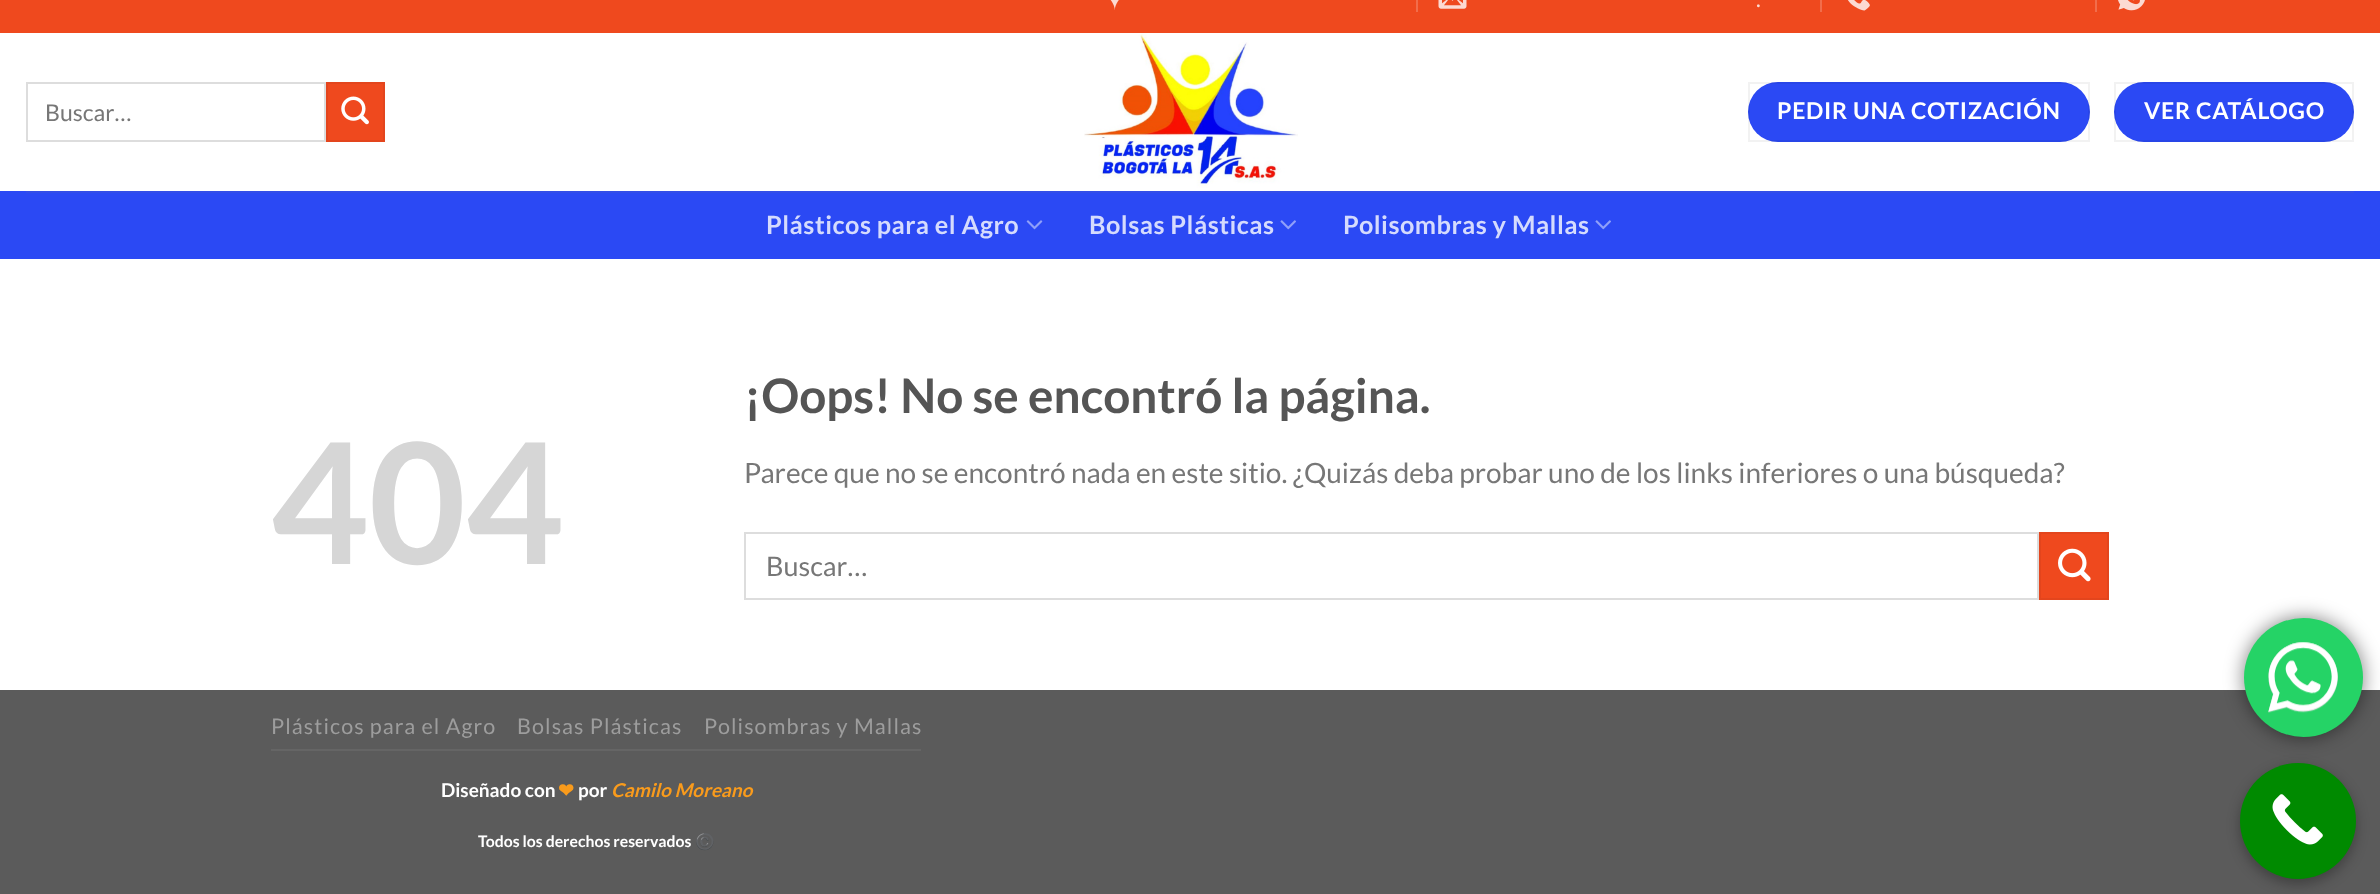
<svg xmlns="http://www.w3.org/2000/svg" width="2380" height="894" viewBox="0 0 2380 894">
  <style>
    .t1 { font: 22px Lato; fill: #fcdbd2; }
    .t2 { font: 23.1px Lato; fill: #777; }
    .t3 { font: bold 23.1px Lato; letter-spacing: 0.7px; fill: #fff; }
    .t4 { font: bold 25.25px Lato; letter-spacing: 0.5px; fill: #d5dbfd; }
    .t5 { font: bold 168px Lato; fill: #d6d6d6; }
    .t6 { font: bold 47.6px Lato; fill: #555; }
    .t7 { font: 28px Lato; fill: #777; }
    .t8 { font: 27px Lato; fill: #777; }
    .t9 { font: 21.5px Lato; letter-spacing: 1.1px; fill: #9d9d9d; }
    .t10 { font: bold 19px Lato; fill: #fff; }
    .t11 { font: bold 19px DejaVu Sans; fill: #f99b1c; }
    .t12 { font: italic bold 19px Lato; fill: #f99b1c; }
    .t13 { font: bold 15.75px Lato; fill: #fff; }
    .t14 { font: bold 15.75px Noto Color Emoji; fill: #fff; }
  </style>
  <rect width="100%" height="100%" fill="#fff"/>
  <rect x="0" y="0" width="2380" height="33" fill="#ef491e"/>
  <image x="1110" y="0" width="9" height="10" href="images/1.png"/>
  <rect x="1416" y="0" width="2" height="12" fill="#f26d4b"/>
  <image x="1438" y="0" width="29" height="9" href="images/2.png"/>
  <text x="1756" y="7" class="t1">.</text>
  <rect x="1820" y="0" width="2" height="12" fill="#f26d4b"/>
  <image x="1848" y="0" width="22" height="11" href="images/3.png"/>
  <rect x="2095" y="0" width="2" height="12" fill="#f26d4b"/>
  <image x="2118" y="0" width="27" height="11" href="images/4.png"/>
  <rect x="27" y="83" width="298" height="58" fill="none" stroke="#ddd" stroke-width="2"/>
  <text x="45" y="121" class="t2">Buscar…</text>
  <rect x="327" y="83" width="57" height="58" fill="#ef491e" stroke="#e3451d" stroke-width="2"/>
  <image x="341" y="96" width="28" height="29" href="images/5.png"/>
  <image x="1084" y="33" width="214" height="155" href="images/6.png"/>
  <rect x="1748" y="82" width="342" height="60" rx="30" fill="#2b49f4"/>
  <rect x="1749" y="83" width="340" height="58" fill="none" stroke="#0000000d" stroke-width="2"/>
  <text x="1777" y="119" class="t3">PEDIR UNA COTIZACIÓN</text>
  <rect x="2114" y="82" width="240" height="60" rx="30" fill="#2b49f4"/>
  <rect x="2115" y="83" width="238" height="58" fill="none" stroke="#0000000d" stroke-width="2"/>
  <text x="2144" y="119" class="t3">VER CATÁLOGO</text>
  <rect x="0" y="191" width="2380" height="68" fill="#2b49f4"/>
  <rect x="26" y="191" width="2328" height="2" fill="#334ee7"/>
  <text x="766" y="234" class="t4">Plásticos para el Agro</text>
  <image x="1026" y="220" width="17" height="10" href="images/7.png"/>
  <text x="1089" y="234" class="t4">Bolsas Plásticas</text>
  <image x="1280" y="220" width="16" height="10" href="images/8.png"/>
  <text x="1343" y="234" class="t4">Polisombras y Mallas</text>
  <image x="1595" y="220" width="16" height="10" href="images/8.png"/>
  <text x="271" y="564" class="t5">404</text>
  <text x="744" y="413" class="t6">¡Oops! No se encontró la página.</text>
  <text x="744" y="483" class="t7">Parece que no se encontró nada en este sitio. ¿Quizás deba probar uno de los links inferiores o una búsqueda?</text>
  <rect x="745" y="533" width="1293" height="66" fill="none" stroke="#ddd" stroke-width="2"/>
  <text x="766" y="576" class="t8">Buscar…</text>
  <rect x="2040" y="533" width="68" height="66" fill="#ef491e" stroke="#e3451d" stroke-width="2"/>
  <image x="2058" y="548" width="33" height="34" href="images/9.png"/>
  <rect x="0" y="690" width="2380" height="204" fill="#5b5b5b"/>
  <rect x="271" y="749" width="650" height="2" fill="#656565"/>
  <text x="271" y="734" class="t9">Plásticos para el Agro</text>
  <text x="517" y="734" class="t9">Bolsas Plásticas</text>
  <text x="704" y="734" class="t9">Polisombras y Mallas</text>
  <text x="441" y="797" class="t10">Diseñado con</text>
  <text x="558" y="797" class="t11">❤</text>
  <text x="578" y="797" class="t10">por</text>
  <text x="611" y="797" class="t12">Camilo Moreano</text>
  <text x="478" y="847" class="t13">Todos los derechos reservados</text>
  <text x="695" y="847" class="t14">©️</text>
  <rect x="2244" y="618" width="119" height="119" rx="59.5" fill="#00000080" filter="blur(9.5px)"/>
  <circle cx="2303.5" cy="677.5" r="59.5" fill="#25d366"/>
  <image x="2268" y="642" width="70" height="71" href="images/10.png"/>
  <rect x="2240" y="768" width="116" height="116" rx="58" fill="#0000004d" filter="blur(6.5px)"/>
  <circle cx="2298" cy="821" r="58" fill="#008a00"/>
  <image x="2272" y="794" width="51" height="51" href="images/11.png"/>
</svg>
